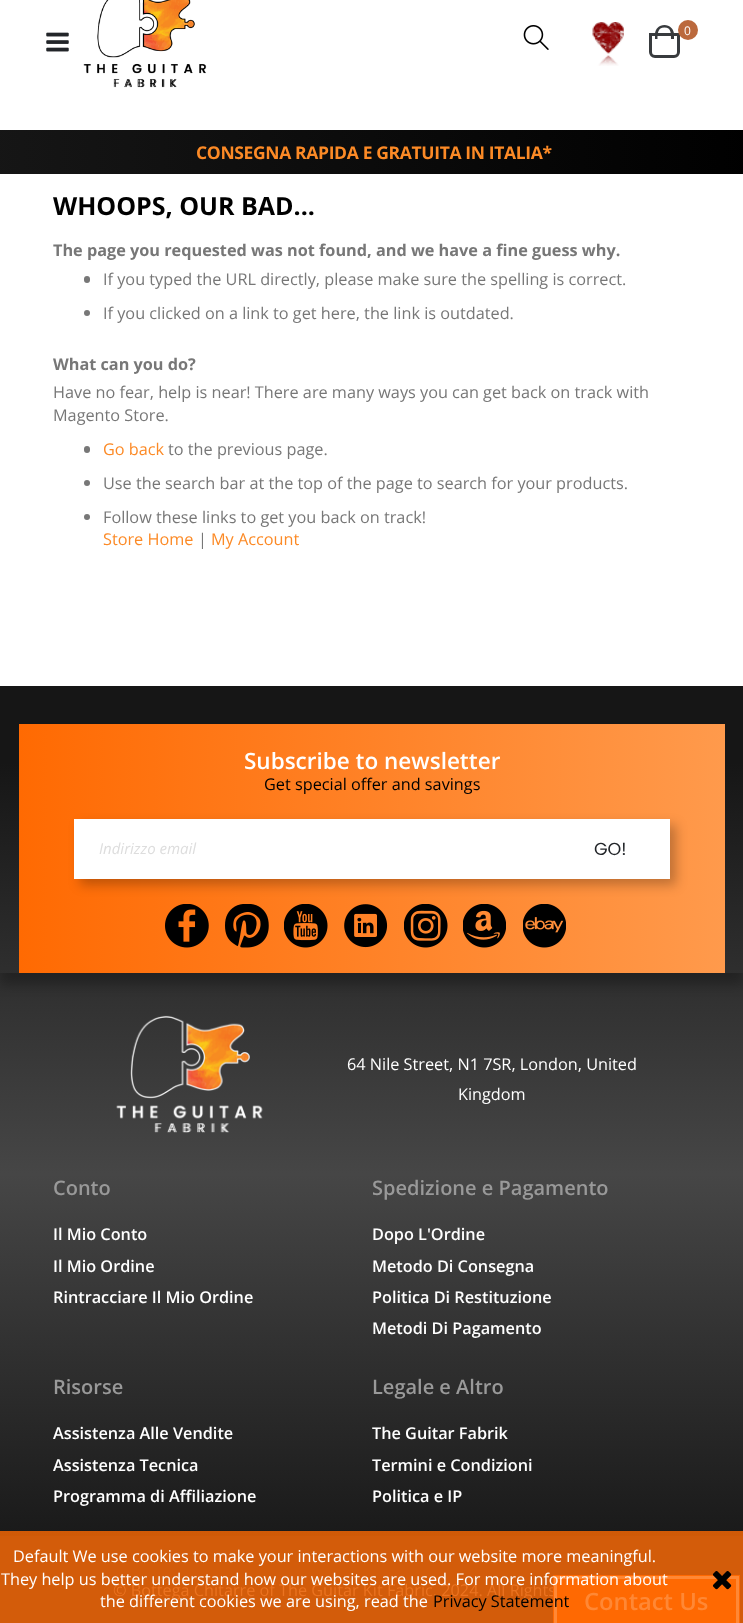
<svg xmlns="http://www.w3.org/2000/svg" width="743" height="1623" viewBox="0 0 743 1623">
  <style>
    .t1 { font: 12px Open Sans; fill: #fff; }
    .t2 { font: bold 17.5px Open Sans; letter-spacing: -0.35px; fill: #fc8a26; }
    .t3 { font: bold 25px Open Sans; fill: #000; }
    .t4 { font: bold 16.25px Open Sans; fill: #777; }
    .t5 { font: 16.25px Open Sans; fill: #777; }
    .t6 { font: 16.25px Open Sans; fill: #fc8a26; }
    .t7 { font: 600 22.5px Open Sans; fill: #fff; }
    .t8 { font: 16.25px Open Sans; fill: #000; }
    .t9 { font: italic 15px Open Sans; fill: #ddd; }
    .t10 { font: 17.5px Poppins; fill: #222529; }
    .t11 { font: 16.25px Open Sans; fill: #fff; }
    .t12 { font: 600 20px Open Sans; fill: #999; }
    .t13 { font: 600 16.25px Open Sans; fill: #fff; }
    .t14 { font: 16.25px Open Sans; fill: #eb7320; }
    .t15 { font: 600 23.75px Open Sans; fill: #ff8835; }
  </style>
  <defs>
    <linearGradient id="g1" gradientUnits="userSpaceOnUse" x1="-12" y1="152" x2="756" y2="152"><stop offset="0" stop-color="#161616"/><stop offset="1" stop-color="#000"/></linearGradient>
    <linearGradient id="g2" gradientUnits="userSpaceOnUse" x1="372" y1="686" x2="372" y2="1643"><stop offset="0.08" stop-color="#161616"/><stop offset="0.51" stop-color="#464646"/><stop offset="0.92" stop-color="#161616"/></linearGradient>
    <linearGradient id="g3" gradientUnits="userSpaceOnUse" x1="372" y1="686" x2="372" y2="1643"><stop offset="0.08" stop-color="#d05906"/><stop offset="0.51" stop-color="#da6310"/><stop offset="0.92" stop-color="#d05906"/></linearGradient>
    <clipPath id="clip1"><path d="M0 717H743V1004H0ZM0 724H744V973H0Z" clip-rule="evenodd"/></clipPath>
    <linearGradient id="g4" gradientUnits="userSpaceOnUse" x1="19" y1="848" x2="725" y2="848"><stop offset="0" stop-color="#ff6a02"/><stop offset="1" stop-color="#ff9a4c"/></linearGradient>
  </defs>
  <rect width="100%" height="100%" fill="#fff"/>
  <image x="83" y="0" width="124" height="88" href="images/1.png"/>
  <image x="523" y="25" width="26" height="25" href="images/2.png"/>
  <image x="592" y="22" width="32" height="44" href="images/3.png"/>
  <path d="M650.5 34.5H678.5V52C678.5 54.5 676.5 56.5 674 56.5H655C652.5 56.5 650.5 54.5 650.5 52Z" fill="none" stroke="#383b3e" stroke-width="3"/>
  <path d="M664.5 25C669.5 25 674 29 674 34.5V39H655V34.5C655 29 659 25 664.5 25ZM664.5 27.5C671.5 27.5 671 34 671 39H657.5C657.5 34 657.5 27.5 664.5 27.5Z" fill="#383b3e" fill-rule="evenodd"/>
  <circle cx="688" cy="30" r="10" fill="#bb693d"/>
  <text x="684" y="35" class="t1">0</text>
  <image x="46" y="32" width="23" height="20" href="images/4.png"/>
  <rect x="0" y="130" width="743" height="44" fill="url(#g1)"/>
  <text x="196" y="159" class="t2">CONSEGNA RAPIDA E GRATUITA IN ITALIA*</text>
  <text x="53" y="215" class="t3">WHOOPS, OUR BAD...</text>
  <text x="53" y="256" class="t4">The page you requested was not found, and we have a fine guess why.</text>
  <rect x="84" y="276" width="6" height="7" rx="3" fill="#777"/>
  <text x="103" y="285" class="t5">If you typed the URL directly, please make sure the spelling is correct.</text>
  <circle cx="87" cy="313" r="3" fill="#777"/>
  <text x="103" y="319" class="t5">If you clicked on a link to get here, the link is outdated.</text>
  <text x="53" y="370" class="t4">What can you do?</text>
  <text x="53" y="398" class="t5">Have no fear, help is near! There are many ways you can get back on track with</text>
  <text x="53" y="421" class="t5">Magento Store.</text>
  <rect x="84" y="446" width="6" height="7" rx="3" fill="#777"/>
  <text x="103" y="455" class="t6">Go back</text>
  <text x="168" y="455" class="t5">to the previous page.</text>
  <circle cx="87" cy="483" r="3" fill="#777"/>
  <text x="103" y="489" class="t5">Use the search bar at the top of the page to search for your products.</text>
  <circle cx="87" cy="517" r="3" fill="#777"/>
  <text x="103" y="523" class="t5">Follow these links to get you back on track!</text>
  <text x="103" y="545" class="t6">Store Home</text>
  <text x="198" y="545" class="t5">|</text>
  <text x="211" y="545" class="t6">My Account</text>
  <rect x="0" y="686" width="743" height="845" fill="url(#g2)"/>
  <rect x="0" y="1531" width="743" height="5" fill="url(#g3)"/>
  <g clip-path="url(#clip1)">
    <rect x="0" y="736" width="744" height="249" fill="#00000040" filter="blur(6px)"/>
  </g>
  <rect x="19" y="724" width="706" height="249" fill="url(#g4)"/>
  <text x="244" y="769" class="t7">Subscribe to newsletter</text>
  <text x="264" y="790" class="t8">Get special offer and savings</text>
  <rect x="80" y="825" width="596" height="60" fill="#00000040" filter="blur(6px)"/>
  <rect x="74" y="819" width="596" height="60" fill="#fff"/>
  <text x="99" y="854" class="t9">Indirizzo email</text>
  <text x="594" y="855" class="t10">GO!</text>
  <image x="165" y="904" width="44" height="44" href="images/5.png"/>
  <image x="225" y="904" width="44" height="44" href="images/6.png"/>
  <image x="284" y="904" width="44" height="44" href="images/7.png"/>
  <image x="344" y="904" width="44" height="44" href="images/8.png"/>
  <image x="404" y="904" width="44" height="44" href="images/9.png"/>
  <image x="463" y="904" width="43" height="44" href="images/10.png"/>
  <image x="523" y="904" width="43" height="44" href="images/11.png"/>
  <image x="116" y="1015" width="147" height="118" href="images/12.png"/>
  <text x="347" y="1070" class="t11">64 Nile Street, N1 7SR, London, United</text>
  <text x="458" y="1100" class="t11">Kingdom</text>
  <text x="53" y="1195" class="t12">Conto</text>
  <text x="53" y="1240" class="t13">Il Mio Conto</text>
  <text x="53" y="1272" class="t13">Il Mio Ordine</text>
  <text x="53" y="1303" class="t13">Rintracciare Il Mio Ordine</text>
  <text x="372" y="1195" class="t12">Spedizione e Pagamento</text>
  <text x="372" y="1240" class="t13">Dopo L'Ordine</text>
  <text x="372" y="1272" class="t13">Metodo Di Consegna</text>
  <text x="372" y="1303" class="t13">Politica Di Restituzione</text>
  <text x="372" y="1334" class="t13">Metodi Di Pagamento</text>
  <text x="53" y="1394" class="t12">Risorse</text>
  <text x="53" y="1439" class="t13">Assistenza Alle Vendite</text>
  <text x="53" y="1471" class="t13">Assistenza Tecnica</text>
  <text x="53" y="1502" class="t13">Programma di Affiliazione</text>
  <text x="372" y="1394" class="t12">Legale e Altro</text>
  <text x="372" y="1439" class="t13">The Guitar Fabrik</text>
  <text x="372" y="1471" class="t13">Termini e Condizioni</text>
  <text x="372" y="1502" class="t13">Politica e IP</text>
  <rect x="0" y="1536" width="743" height="87" fill="#d35c0a"/>
  <text x="113" y="1596" class="t14">© Bottega Chitarre of The Guitar Kit Fabric. 2024. All Rights</text>
  <text x="13" y="1562" class="t11">Default We use cookies to make your interactions with our website more meaningful.</text>
  <rect x="553" y="1575" width="187" height="48" fill="#ff6902"/>
  <rect x="555.5" y="1577.5" width="182" height="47" fill="none" stroke="#ff8835" stroke-width="3"/>
  <text x="1" y="1585" class="t11">They help us better understand how our websites are used. For more information about</text>
  <text x="100" y="1607" class="t11">the different cookies we are using, read the</text>
  <text x="433" y="1607" class="t8">Privacy Statement</text>
  <image x="712" y="1571" width="20" height="19" href="images/13.png"/>
  <text x="584" y="1610" class="t15">Contact Us</text>
</svg>
